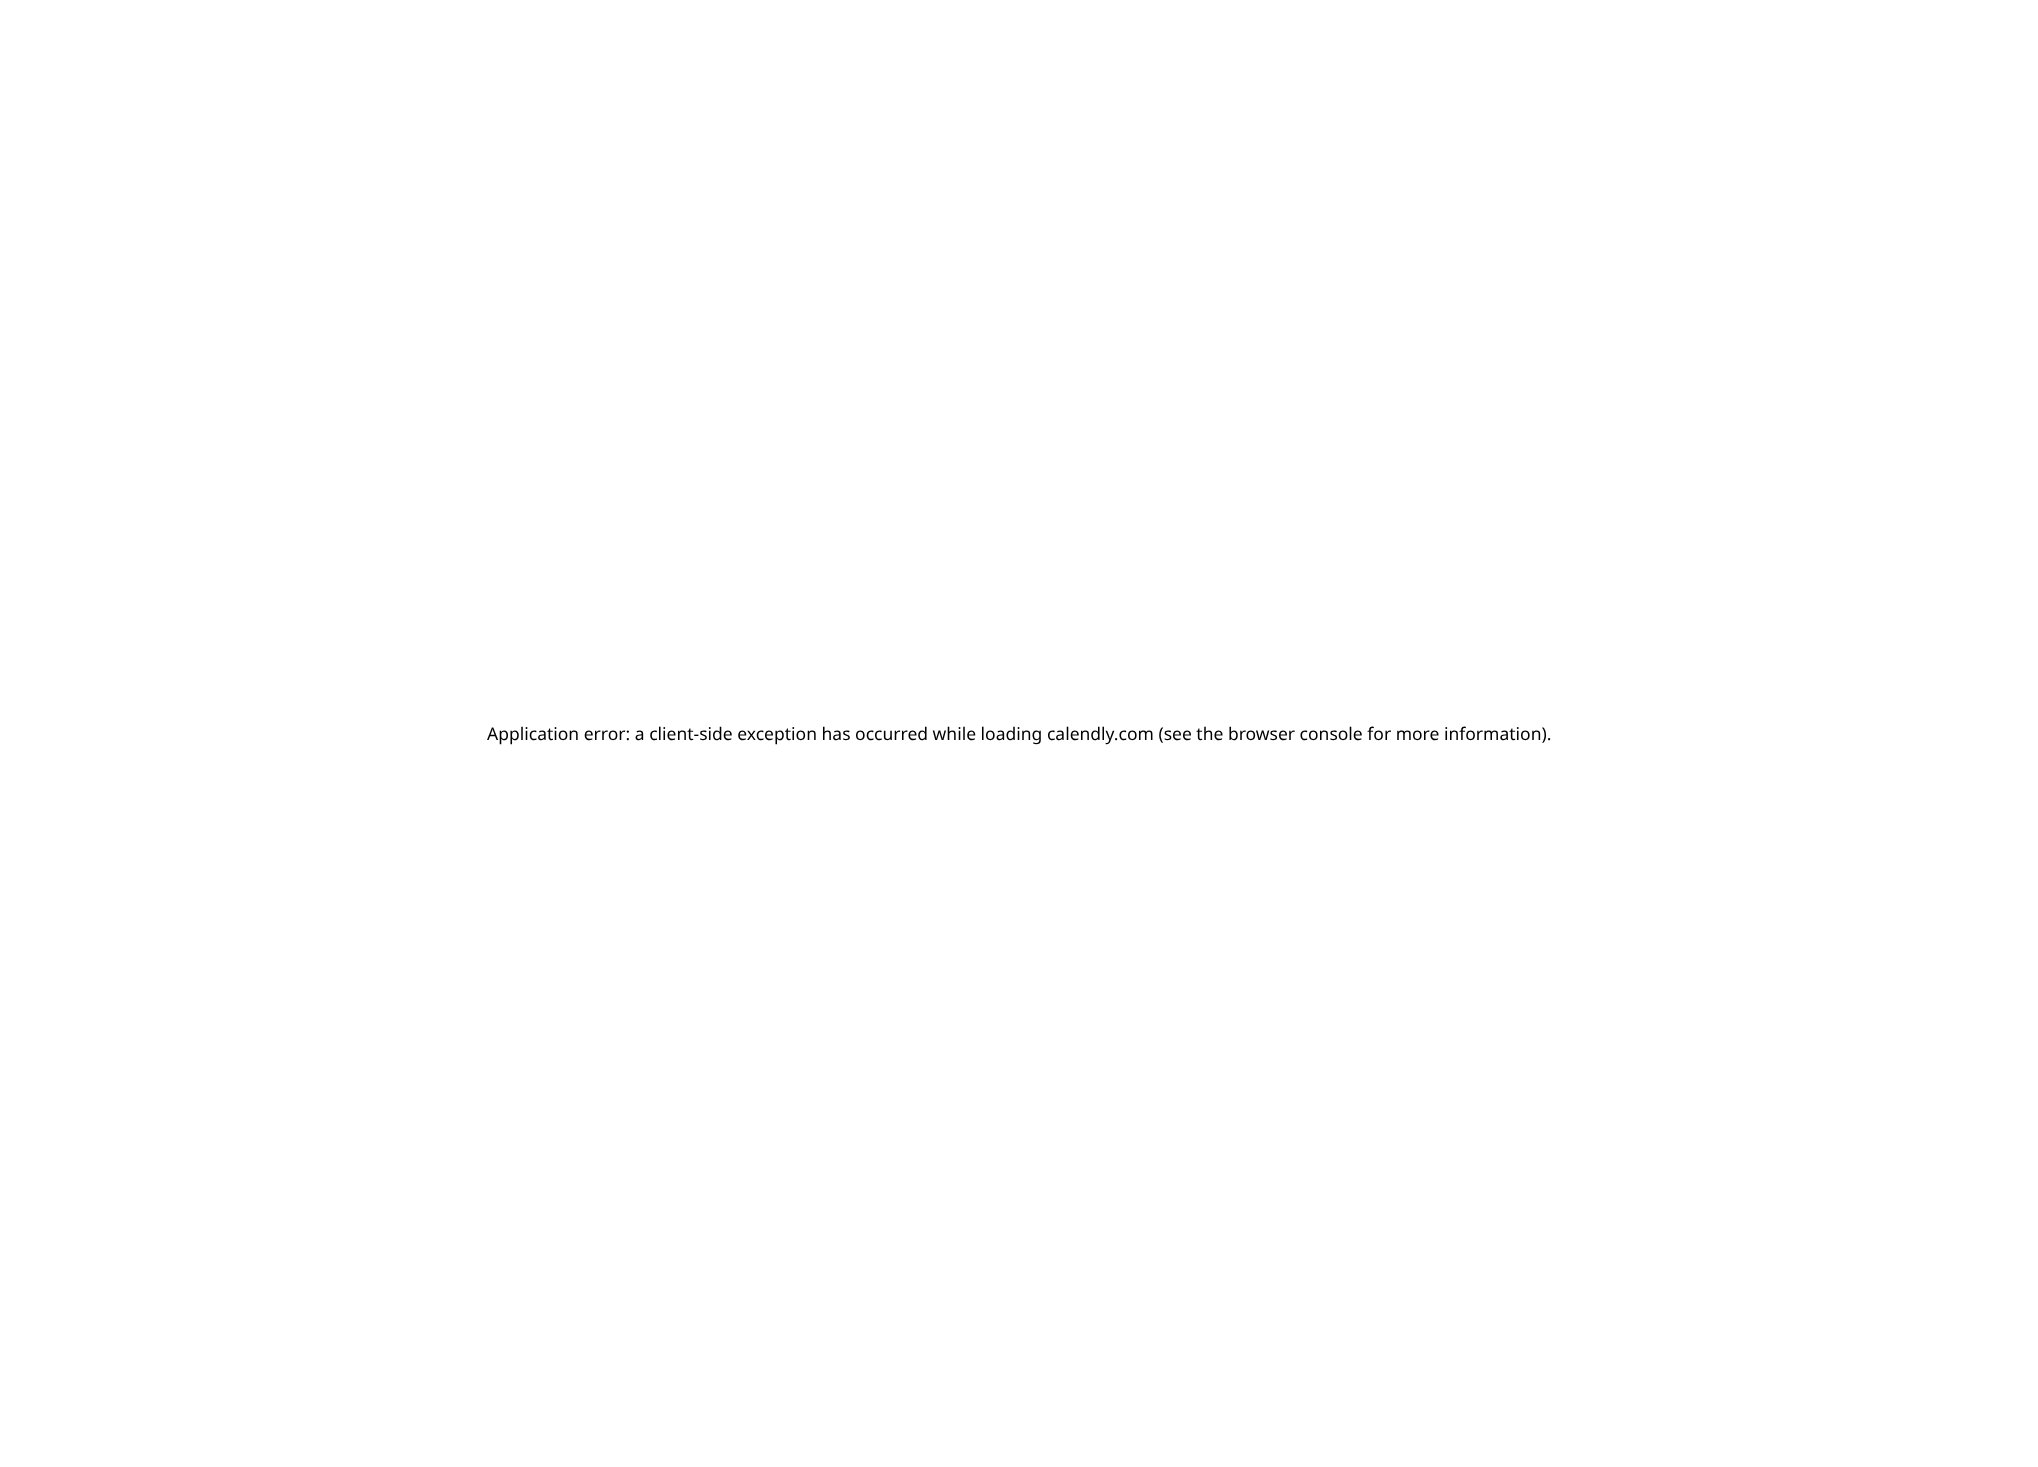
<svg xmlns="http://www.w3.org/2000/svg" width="2038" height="1467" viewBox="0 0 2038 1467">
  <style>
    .t1 { font: 17.5px Noto Sans; fill: #000; }
  </style>
  <rect width="100%" height="100%" fill="#fff"/>
  <text x="487" y="740" class="t1">Application error: a client-side exception has occurred while loading calendly.com (see the browser console for more information).</text>
</svg>
